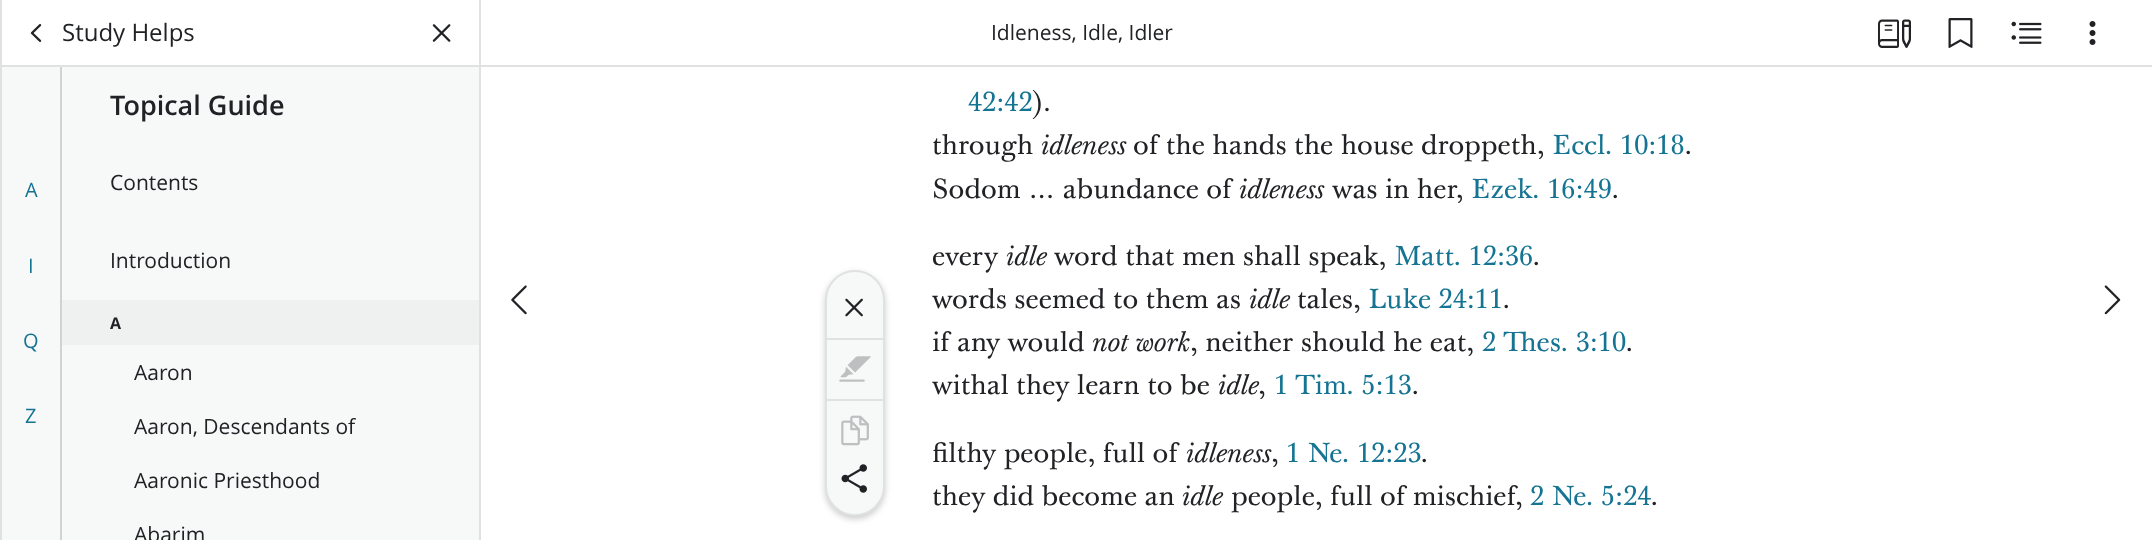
<svg xmlns="http://www.w3.org/2000/svg" width="2152" height="540" viewBox="0 0 2152 540">
  <style>
    .t1 { font: 24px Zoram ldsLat; fill: #212225; }
    .t2 { font: 20px Zoram ldsLat; fill: #157493; }
    .t3 { font: 600 27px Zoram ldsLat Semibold; fill: #212225; }
    .t4 { font: 21px Zoram ldsLat; fill: #212225; }
    .t5 { font: bold 16px Zoram ldsLat; fill: #212225; }
    .t6 { font: 27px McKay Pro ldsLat; fill: #157493; }
    .t7 { font: 27px McKay Pro ldsLat; fill: #212225; }
    .t8 { font: italic 27px McKay Pro ldsLat; fill: #212225; }
  </style>
  <rect width="100%" height="100%" fill="#fff"/>
  <rect x="2" y="67" width="477" height="473" fill="#f7f8f8"/>
  <rect x="479" y="0" width="2" height="540" fill="#e0e2e2"/>
  <rect x="0" y="0" width="2" height="540" fill="#e0e2e2"/>
  <rect x="60" y="66" width="2" height="474" fill="#d0d3d3"/>
  <rect x="2" y="65" width="477" height="2" fill="#e0e2e2"/>
  <image x="30" y="24" width="12" height="18" href="images/1.png"/>
  <text x="62" y="41" class="t1">Study Helps</text>
  <image x="432" y="24" width="19" height="18" href="images/2.png"/>
  <text x="25" y="197" class="t2">A</text>
  <text x="28" y="273" class="t2">I</text>
  <text x="23" y="348" class="t2">Q</text>
  <text x="25" y="423" class="t2">Z</text>
  <text x="110" y="115" class="t3">Topical Guide</text>
  <text x="110" y="190" class="t4">Contents</text>
  <text x="110" y="268" class="t4">Introduction</text>
  <rect x="62" y="300" width="417" height="45" fill="#eff0f0"/>
  <text x="110" y="329" class="t5">A</text>
  <text x="134" y="380" class="t4">Aaron</text>
  <text x="134" y="434" class="t4">Aaron, Descendants of</text>
  <text x="134" y="488" class="t4">Aaronic Priesthood</text>
  <text x="134" y="542" class="t4">Abarim</text>
  <rect x="481" y="65" width="1671" height="2" fill="#e0e2e2"/>
  <text x="991" y="40" class="t4">Idleness, Idle, Idler</text>
  <image x="1878" y="19" width="33" height="29" href="images/3.png"/>
  <image x="1948" y="18" width="25" height="30" href="images/4.png"/>
  <image x="2011" y="21" width="31" height="23" href="images/5.png"/>
  <image x="2089" y="21" width="7" height="24" href="images/6.png"/>
  <image x="511" y="285" width="16" height="30" href="images/7.png"/>
  <rect x="825" y="273" width="60" height="246" rx="30" fill="#00000033" filter="blur(3px)"/>
  <rect x="826" y="271" width="58" height="244" rx="29" fill="#f7f8f8" stroke="#e0e2e2" stroke-width="2"/>
  <image x="845" y="298" width="18" height="19" href="images/8.png"/>
  <rect x="827" y="338" width="57" height="2" fill="#e0e2e2"/>
  <image x="839" y="356" width="32" height="26" href="images/9.png"/>
  <rect x="827" y="399" width="57" height="2" fill="#e0e2e2"/>
  <image x="841" y="415" width="28" height="31" href="images/10.png"/>
  <image x="841" y="464" width="26" height="29" href="images/11.png"/>
  <text x="968" y="111" class="t6">42:42</text>
  <text x="1033" y="111" class="t7">).</text>
  <text x="932" y="154" class="t7">through</text>
  <text x="1041" y="154" class="t8">idleness</text>
  <text x="1133" y="154" class="t7">of the hands the house droppeth,</text>
  <text x="1552" y="154" class="t6">Eccl. 10:18</text>
  <text x="1685" y="154" class="t7">.</text>
  <text x="932" y="198" class="t7">Sodom … abundance of</text>
  <text x="1239" y="198" class="t8">idleness</text>
  <text x="1332" y="198" class="t7">was in her,</text>
  <text x="1471" y="198" class="t6">Ezek. 16:49</text>
  <text x="1612" y="198" class="t7">.</text>
  <text x="932" y="265" class="t7">every</text>
  <text x="1006" y="265" class="t8">idle</text>
  <text x="1054" y="265" class="t7">word that men shall speak,</text>
  <text x="1394" y="265" class="t6">Matt. 12:36</text>
  <text x="1533" y="265" class="t7">.</text>
  <text x="932" y="308" class="t7">words seemed to them as</text>
  <text x="1249" y="308" class="t8">idle</text>
  <text x="1297" y="308" class="t7">tales,</text>
  <text x="1368" y="308" class="t6">Luke 24:11</text>
  <text x="1503" y="308" class="t7">.</text>
  <text x="932" y="351" class="t7">if any would</text>
  <text x="1092" y="351" class="t8">not work</text>
  <text x="1190" y="351" class="t7">, neither should he eat,</text>
  <text x="1482" y="351" class="t6">2 Thes. 3:10</text>
  <text x="1626" y="351" class="t7">.</text>
  <text x="932" y="394" class="t7">withal they learn to be</text>
  <text x="1218" y="394" class="t8">idle</text>
  <text x="1258" y="394" class="t7">,</text>
  <text x="1274" y="394" class="t6">1 Tim. 5:13</text>
  <text x="1412" y="394" class="t7">.</text>
  <text x="932" y="462" class="t7">filthy people, full of</text>
  <text x="1186" y="462" class="t8">idleness</text>
  <text x="1271" y="462" class="t7">,</text>
  <text x="1286" y="462" class="t6">1 Ne. 12:23</text>
  <text x="1421" y="462" class="t7">.</text>
  <text x="932" y="505" class="t7">they did become an</text>
  <text x="1182" y="505" class="t8">idle</text>
  <text x="1231" y="505" class="t7">people, full of mischief,</text>
  <text x="1530" y="505" class="t6">2 Ne. 5:24</text>
  <text x="1651" y="505" class="t7">.</text>
  <image x="2104" y="285" width="17" height="30" href="images/12.png"/>
</svg>
